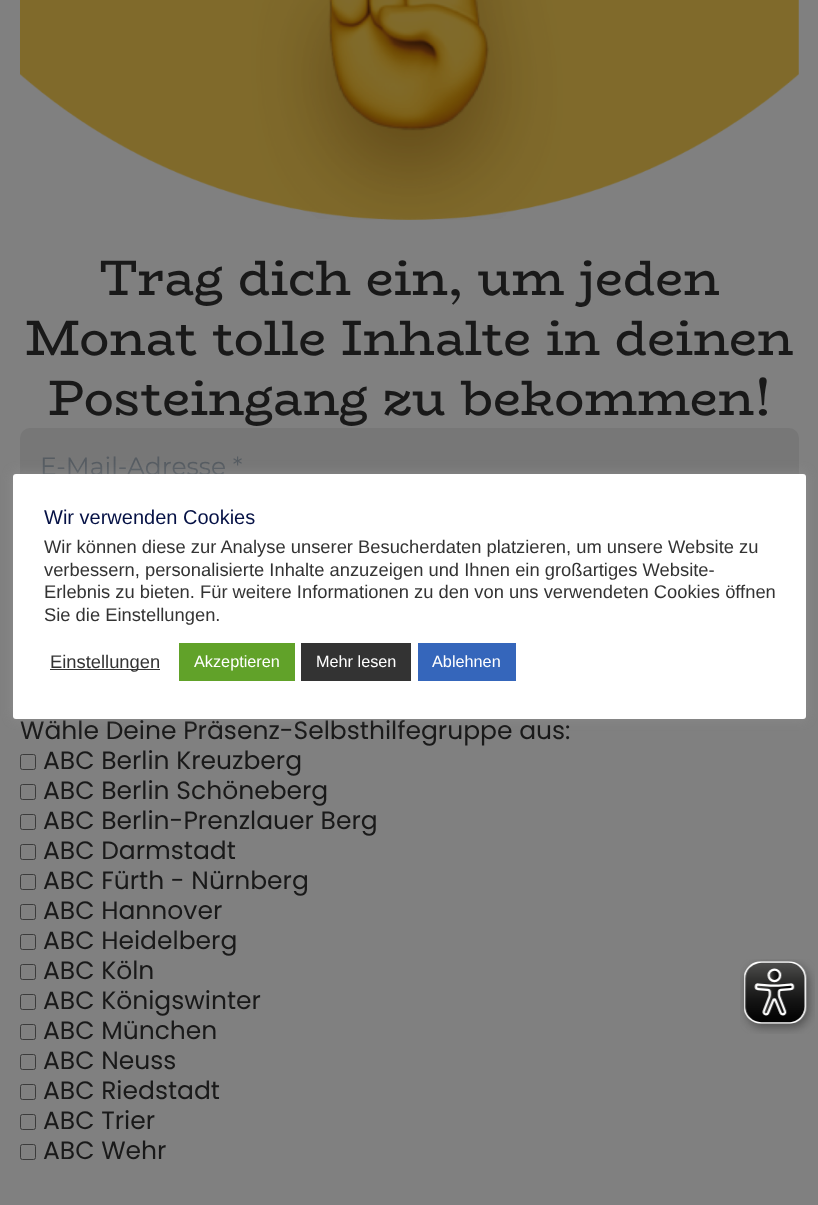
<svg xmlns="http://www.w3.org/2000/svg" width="818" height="1205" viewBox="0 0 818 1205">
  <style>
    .t1 { font: 50px BioRhyme; fill: #191919; }
    .t2 { font: 25px Montserrat; fill: #565c62; }
    .t3 { font: 25px Poppins; fill: #191919; }
    .t4 { font: 20px Liberation Sans; fill: #051145; }
    .t5 { font: 18.35px Liberation Sans; fill: #333; }
    .t6 { font: 16.25px Liberation Sans; fill: #fff; }
  </style>
  <rect width="100%" height="100%" fill="#808080"/>
  <image x="20" y="0" width="779" height="220" href="images/1.png"/>
  <text x="99" y="295" class="t1">Trag dich ein, um jeden</text>
  <text x="25" y="355" class="t1">Monat tolle Inhalte in deinen</text>
  <text x="48" y="415" class="t1">Posteingang zu bekommen!</text>
  <rect x="20" y="428" width="779" height="77" rx="10" fill="#777"/>
  <text x="40" y="475" class="t2">E-Mail-Adresse *</text>
  <text x="20" y="739" class="t3">Wähle Deine Präsenz-Selbsthilfegruppe aus:</text>
  <rect x="20.5" y="754.5" width="15" height="15" rx="2" fill="none" stroke="#3b3b3b"/>
  <text x="43" y="769" class="t3">ABC Berlin Kreuzberg</text>
  <rect x="20.5" y="784.5" width="15" height="15" rx="2" fill="none" stroke="#3b3b3b"/>
  <text x="43" y="799" class="t3">ABC Berlin Schöneberg</text>
  <rect x="20.5" y="814.5" width="15" height="15" rx="2" fill="none" stroke="#3b3b3b"/>
  <text x="43" y="829" class="t3">ABC Berlin-Prenzlauer Berg</text>
  <rect x="20.5" y="844.5" width="15" height="15" rx="2" fill="none" stroke="#3b3b3b"/>
  <text x="43" y="859" class="t3">ABC Darmstadt</text>
  <rect x="20.5" y="874.5" width="15" height="15" rx="2" fill="none" stroke="#3b3b3b"/>
  <text x="43" y="889" class="t3">ABC Fürth - Nürnberg</text>
  <rect x="20.5" y="904.5" width="15" height="15" rx="2" fill="none" stroke="#3b3b3b"/>
  <text x="43" y="919" class="t3">ABC Hannover</text>
  <rect x="20.5" y="934.5" width="15" height="15" rx="2" fill="none" stroke="#3b3b3b"/>
  <text x="43" y="949" class="t3">ABC Heidelberg</text>
  <rect x="20.5" y="964.5" width="15" height="15" rx="2" fill="none" stroke="#3b3b3b"/>
  <text x="43" y="979" class="t3">ABC Köln</text>
  <rect x="20.5" y="994.5" width="15" height="15" rx="2" fill="none" stroke="#3b3b3b"/>
  <text x="43" y="1009" class="t3">ABC Königswinter</text>
  <rect x="20.5" y="1024.5" width="15" height="15" rx="2" fill="none" stroke="#3b3b3b"/>
  <text x="43" y="1039" class="t3">ABC München</text>
  <rect x="20.5" y="1054.5" width="15" height="15" rx="2" fill="none" stroke="#3b3b3b"/>
  <text x="43" y="1069" class="t3">ABC Neuss</text>
  <rect x="20.5" y="1084.5" width="15" height="15" rx="2" fill="none" stroke="#3b3b3b"/>
  <text x="43" y="1099" class="t3">ABC Riedstadt</text>
  <rect x="20.5" y="1114.5" width="15" height="15" rx="2" fill="none" stroke="#3b3b3b"/>
  <text x="43" y="1129" class="t3">ABC Trier</text>
  <rect x="20.5" y="1144.5" width="15" height="15" rx="2" fill="none" stroke="#3b3b3b"/>
  <text x="43" y="1159" class="t3">ABC Wehr</text>
  <rect x="13" y="473" width="793" height="245" rx="3" fill="#acabab4d" filter="blur(6px)"/>
  <rect x="13" y="474" width="793" height="245" rx="3" fill="#fff"/>
  <text x="44" y="524" class="t4">Wir verwenden Cookies</text>
  <text x="44" y="553" class="t5">Wir können diese zur Analyse unserer Besucherdaten platzieren, um unsere Website zu</text>
  <text x="44" y="576" class="t5">verbessern, personalisierte Inhalte anzuzeigen und Ihnen ein großartiges Website-</text>
  <text x="44" y="598" class="t5">Erlebnis zu bieten. Für weitere Informationen zu den von uns verwendeten Cookies öffnen</text>
  <text x="44" y="621" class="t5">Sie die Einstellungen.</text>
  <rect x="50" y="669" width="110" height="1" fill="#333"/>
  <text x="50" y="668" class="t5">Einstellungen</text>
  <rect x="179" y="643" width="116" height="38" fill="#61a229"/>
  <text x="194" y="667" class="t6">Akzeptieren</text>
  <rect x="301" y="643" width="110" height="38" fill="#333"/>
  <text x="316" y="667" class="t6">Mehr lesen</text>
  <rect x="418" y="643" width="98" height="38" fill="#3566bb"/>
  <text x="432" y="667" class="t6">Ablehnen</text>
  <image x="740" y="959" width="75" height="75" href="images/2.png"/>
</svg>
